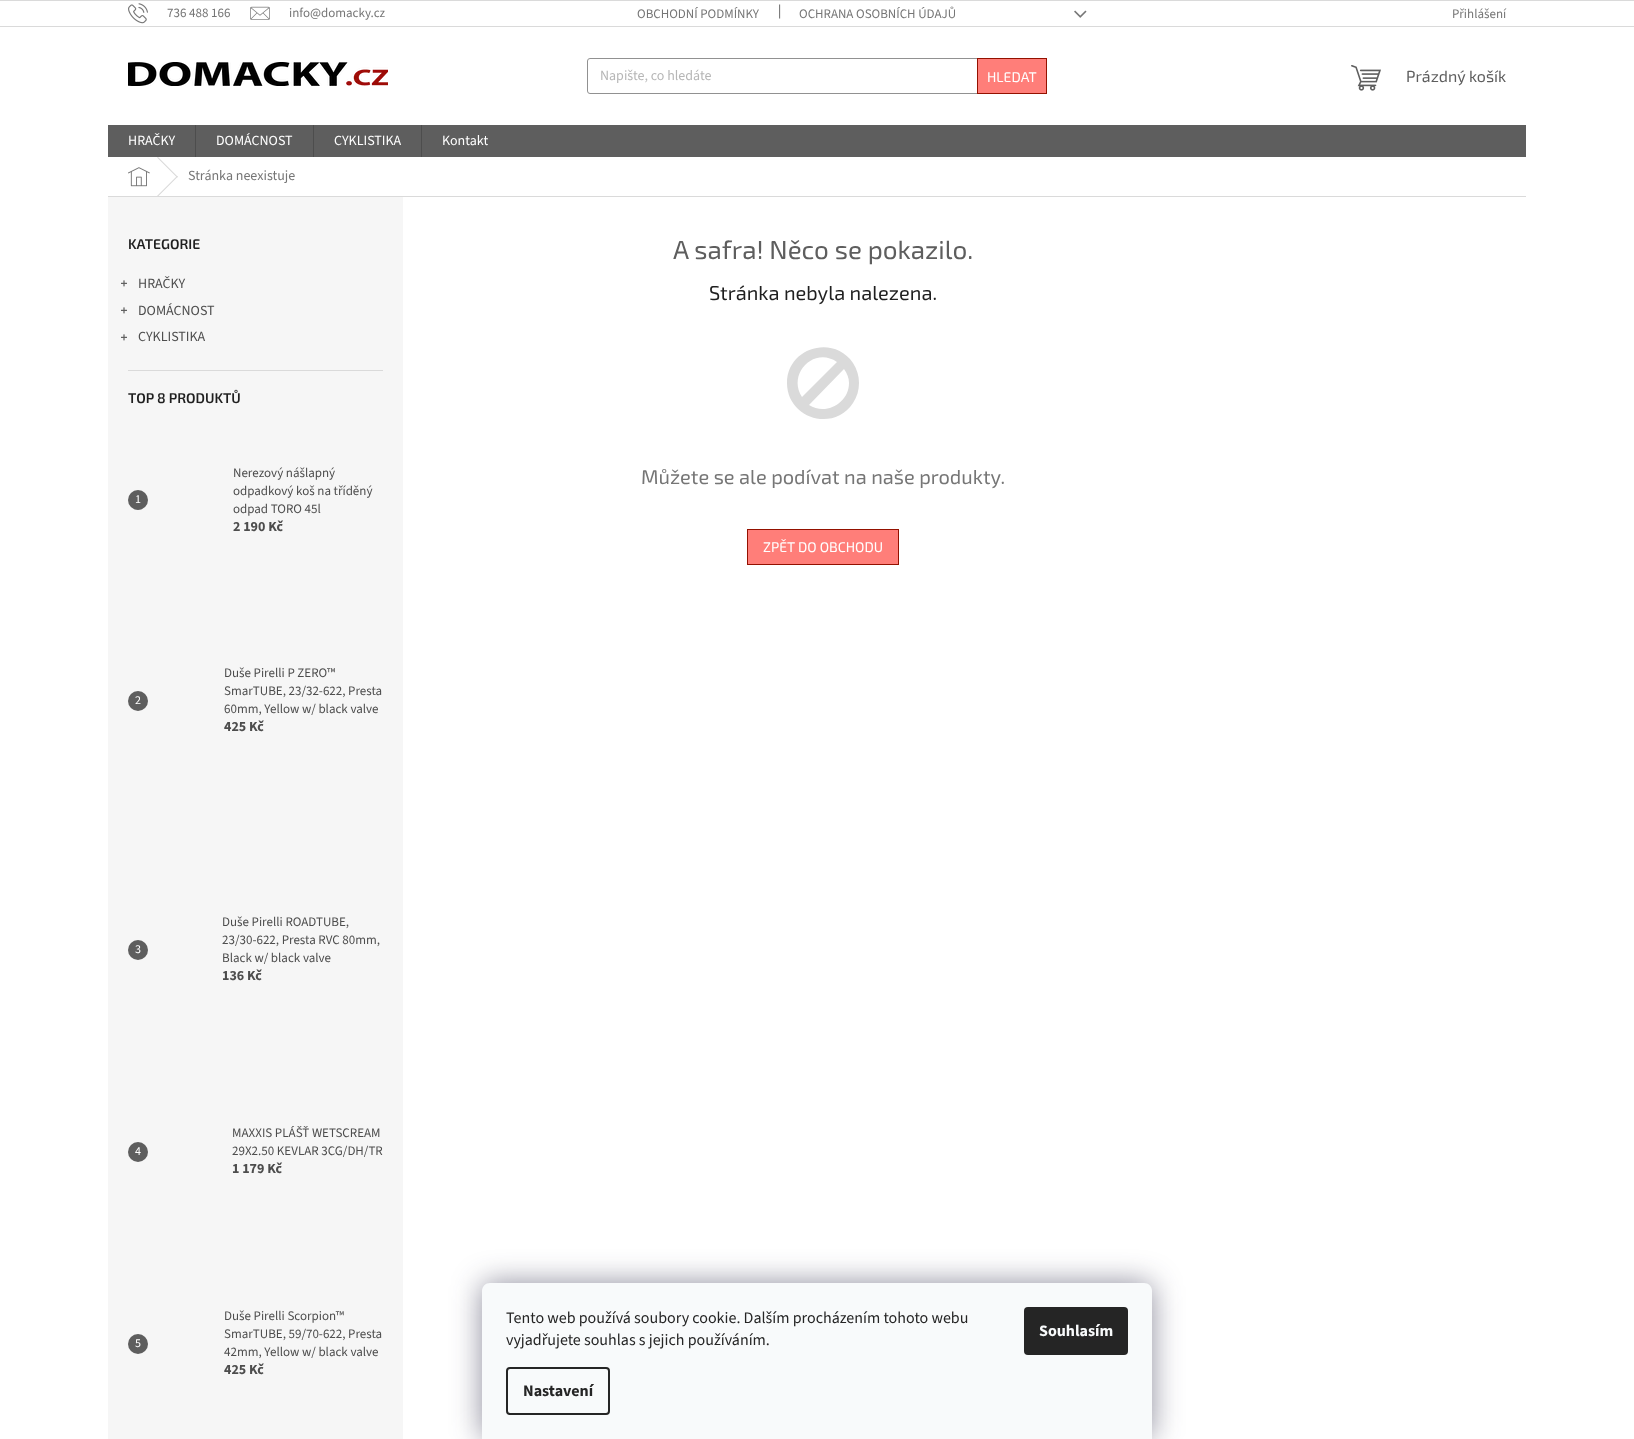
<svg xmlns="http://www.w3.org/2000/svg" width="1634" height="1439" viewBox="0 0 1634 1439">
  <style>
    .t1 { font: 13px 'Source Sans 3'; fill: #767676; }
    .t2 { font: 14px 'Source Sans 3'; fill: #4d4d4d; }
    .t3 { font: 14px 'Source Sans 3'; fill: #b6b6b6; }
    .t4 { font: 14px 'Exo 2'; fill: #fff; }
    .t5 { font: 16px 'Exo 2'; fill: #5e5e5e; }
    .t6 { font: 14px 'Source Sans 3'; fill: #fff; }
    .t7 { font: 14px 'Source Sans 3'; fill: #767676; }
    .t8 { font: 600 14px 'Exo 2'; fill: #1f1f1f; }
    .t9 { font: 12px 'Source Sans 3'; fill: #fff; }
    .t10 { font: 13px 'Source Sans 3'; fill: #4d4d4d; }
    .t11 { font: bold 14px 'Source Sans 3'; fill: #4d4d4d; }
    .t12 { font: 26px 'Exo 2'; fill: #5e5e5e; }
    .t13 { font: 20px 'Exo 2'; fill: #1f1f1f; }
    .t14 { font: 20px 'Exo 2'; fill: #767676; }
    .t15 { font: 16px 'Source Sans 3'; fill: #252525; }
    .t16 { font: bold 16px 'Source Sans 3'; fill: #252525; }
    .t17 { font: bold 16px 'Source Sans 3'; fill: #f8fafb; }
  </style>
  <rect width="100%" height="100%" fill="#fff"/>
  <rect x="0" y="0" width="1634" height="1" fill="#dadada"/>
  <rect x="0" y="26" width="1634" height="1" fill="#dadada"/>
  <image x="128" y="3" width="20" height="21" href="images/1.png"/>
  <text x="167" y="17" class="t1">736 488 166</text>
  <image x="250" y="6" width="20" height="14" href="images/2.png"/>
  <text x="289" y="17" class="t1">info@domacky.cz</text>
  <text x="637" y="18" class="t1">OBCHODNÍ PODMÍNKY</text>
  <text x="778" y="15" class="t2">|</text>
  <text x="799" y="18" class="t1">OCHRANA OSOBNÍCH ÚDAJŮ</text>
  <image x="1074" y="10" width="13" height="8" href="images/3.png"/>
  <text x="1452" y="18" class="t1">Přihlášení</text>
  <image x="128" y="62" width="260" height="24" href="images/4.png"/>
  <rect x="587.5" y="58.5" width="459" height="35" rx="2.5" fill="none" stroke="#919191"/>
  <text x="600" y="80" class="t3">Napište, co hledáte</text>
  <rect x="977.5" y="58.5" width="69" height="35" fill="#ff7e79" stroke="#941100"/>
  <text x="987" y="82" class="t4">HLEDAT</text>
  <image x="1351" y="65" width="30" height="26" href="images/5.png"/>
  <text x="1406" y="82" class="t5">Prázdný košík</text>
  <rect x="108" y="125" width="1418" height="32" fill="#5e5e5e"/>
  <text x="128" y="145" class="t6">HRAČKY</text>
  <rect x="195" y="125" width="1" height="32" fill="#4d4d4d"/>
  <text x="216" y="145" class="t6">DOMÁCNOST</text>
  <rect x="313" y="125" width="1" height="32" fill="#4d4d4d"/>
  <text x="334" y="145" class="t6">CYKLISTIKA</text>
  <rect x="421" y="125" width="1" height="32" fill="#4d4d4d"/>
  <text x="442" y="145" class="t6">Kontakt</text>
  <rect x="108" y="196" width="1418" height="1" fill="#dadada"/>
  <image x="128" y="167" width="22" height="20" href="images/6.png"/>
  <path d="M157 157.5L158 157L178 177L177 177.5Z" fill="#dadada"/>
  <path d="M177 176L178 176.5L158 196.5L157 196Z" fill="#dadada"/>
  <text x="188" y="180" class="t7">Stránka neexistuje</text>
  <rect x="108" y="197" width="295" height="1242" fill="#f6f6f6"/>
  <rect x="128" y="370" width="255" height="1" fill="#dadada"/>
  <text x="128" y="249" class="t8">KATEGORIE</text>
  <image x="121" y="280" width="6" height="7" href="images/7.png"/>
  <text x="138" y="288" class="t2">HRAČKY</text>
  <image x="121" y="307" width="6" height="7" href="images/7.png"/>
  <text x="138" y="315" class="t2">DOMÁCNOST</text>
  <image x="121" y="334" width="6" height="7" href="images/7.png"/>
  <text x="138" y="341" class="t2">CYKLISTIKA</text>
  <text x="128" y="403" class="t8">TOP 8 PRODUKTŮ</text>
  <circle cx="138" cy="500" r="10" fill="#5e5e5e"/>
  <text x="135" y="503" class="t9">1</text>
  <text x="233" y="477" class="t10">Nerezový nášlapný</text>
  <text x="233" y="495" class="t10">odpadkový koš na tříděný</text>
  <text x="233" y="513" class="t10">odpad TORO 45l</text>
  <text x="233" y="531" class="t11">2 190 Kč</text>
  <circle cx="138" cy="701" r="10" fill="#5e5e5e"/>
  <text x="135" y="704" class="t9">2</text>
  <text x="224" y="677" class="t10">Duše Pirelli P ZERO™</text>
  <text x="224" y="695" class="t10">SmarTUBE, 23/32-622, Presta</text>
  <text x="224" y="713" class="t10">60mm, Yellow w/ black valve</text>
  <text x="224" y="731" class="t11">425 Kč</text>
  <circle cx="138" cy="950" r="10" fill="#5e5e5e"/>
  <text x="135" y="953" class="t9">3</text>
  <text x="222" y="926" class="t10">Duše Pirelli ROADTUBE,</text>
  <text x="222" y="944" class="t10">23/30-622, Presta RVC 80mm,</text>
  <text x="222" y="962" class="t10">Black w/ black valve</text>
  <text x="222" y="980" class="t11">136 Kč</text>
  <circle cx="138" cy="1152" r="10" fill="#5e5e5e"/>
  <text x="135" y="1155" class="t9">4</text>
  <text x="232" y="1137" class="t10">MAXXIS PLÁŠŤ WETSCREAM</text>
  <text x="232" y="1155" class="t10">29X2.50 KEVLAR 3CG/DH/TR</text>
  <text x="232" y="1173" class="t11">1 179 Kč</text>
  <circle cx="138" cy="1344" r="10" fill="#5e5e5e"/>
  <text x="135" y="1347" class="t9">5</text>
  <text x="224" y="1320" class="t10">Duše Pirelli Scorpion™</text>
  <text x="224" y="1338" class="t10">SmarTUBE, 59/70-622, Presta</text>
  <text x="224" y="1356" class="t10">42mm, Yellow w/ black valve</text>
  <text x="224" y="1374" class="t11">425 Kč</text>
  <text x="673" y="259" class="t12">A safra! Něco se pokazilo.</text>
  <text x="709" y="300" class="t13">Stránka nebyla nalezena.</text>
  <path d="M849 383C849 378 847 373 844 369L809 405C826 416 849 403 849 383ZM802 397L837 362C814 346 787 374 802 397ZM859 383C859 390 857 397 853 403C833 433 787 418 787 383C787 348 833 334 853 363C857 369 859 376 859 383Z" fill="#dadada"/>
  <text x="641" y="484" class="t14">Můžete se ale podívat na naše produkty.</text>
  <rect x="747.5" y="529.5" width="151" height="35" fill="#ff7e79" stroke="#941100"/>
  <text x="763" y="552" class="t4">ZPĚT DO OBCHODU</text>
  <rect x="482" y="1283" width="670" height="156" rx="8" fill="#1b193980" filter="blur(15px)"/>
  <path d="M490 1283H1144C1148.5 1283 1152 1286.5 1152 1291V1439H482V1291C482 1286.5 485.5 1283 490 1283Z" fill="#f8fafb"/>
  <text x="506" y="1323" class="t15">Tento web používá soubory cookie. Dalším procházením tohoto webu</text>
  <text x="506" y="1345" class="t15">vyjadřujete souhlas s jejich používáním.</text>
  <rect x="507" y="1368" width="102" height="46" rx="3" fill="none" stroke="#252525" stroke-width="2"/>
  <text x="523" y="1396" class="t16">Nastavení</text>
  <rect x="1024" y="1307" width="104" height="48" rx="4" fill="#252525"/>
  <text x="1039" y="1336" class="t17">Souhlasím</text>
</svg>
